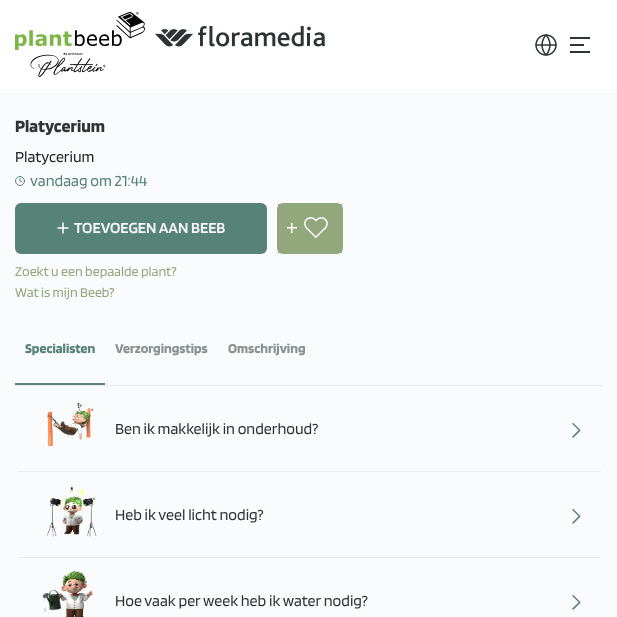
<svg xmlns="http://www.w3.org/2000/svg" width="617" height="617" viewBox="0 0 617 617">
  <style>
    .t1 { font: bold 18px Blinker; fill: #2e3333; }
    .t2 { font: 16px Blinker; fill: #212529; }
    .t3 { font: 16px Blinker; fill: #568278; }
    .t4 { font: 600 16px Blinker; fill: #f5f7f7; }
    .t5 { font: 14px Blinker; fill: #93a77d; }
    .t6 { font: bold 14px Blinker; fill: #568278; }
    .t7 { font: bold 14px Blinker; fill: #899191; }
    .t8 { font: 16px Blinker; fill: #2e3333; }
  </style>
  <rect width="100%" height="100%" fill="#f9fbfc"/>
  <rect x="0" y="0" width="617" height="89" fill="#fff"/>
  <image x="15" y="12" width="130" height="65" href="images/1.png"/>
  <image x="155" y="26" width="170" height="21" href="images/2.png"/>
  <image x="535" y="34" width="22" height="22" href="images/3.png"/>
  <rect x="570" y="37" width="20" height="2" fill="#2e3333"/>
  <rect x="570" y="44" width="14" height="2" fill="#2e3333"/>
  <rect x="570" y="51" width="20" height="2" fill="#2e3333"/>
  <text x="15" y="132" class="t1">Platycerium</text>
  <text x="15" y="162" class="t2">Platycerium</text>
  <image x="15" y="176" width="10" height="10" href="images/4.png"/>
  <text x="30" y="186" class="t3">vandaag om 21:44</text>
  <rect x="15" y="203" width="252" height="51" rx="6" fill="#568278"/>
  <path d="M63 223V233M68 228H58" fill="none" stroke="#fff" stroke-width="1.5" stroke-linecap="round"/>
  <text x="74" y="233" class="t4">TOEVOEGEN AAN BEEB</text>
  <rect x="277.5" y="203.5" width="65" height="50" rx="5.5" fill="none" stroke="#93a77d"/>
  <rect x="278" y="204" width="64" height="49" fill="#93a77d"/>
  <image x="304" y="217" width="24" height="21" href="images/5.png"/>
  <image x="287" y="223" width="10" height="10" href="images/6.png"/>
  <text x="15" y="276" class="t5">Zoekt u een bepaalde plant?</text>
  <text x="15" y="297" class="t5">Wat is mijn Beeb?</text>
  <rect x="15" y="383" width="90" height="2" fill="#568278"/>
  <text x="25" y="353" class="t6">Specialisten</text>
  <text x="115" y="353" class="t7">Verzorgingstips</text>
  <text x="228" y="353" class="t7">Omschrijving</text>
  <rect x="15" y="385" width="587" height="1" fill="#eaebec"/>
  <rect x="15" y="469" width="587" height="3" fill="#fff"/>
  <path d="M15 386H602V469C602 470.5 600.5 472 599 472H18C16.5 472 15 470.5 15 469Z" fill="#f9fbfc"/>
  <rect x="17" y="471" width="584" height="1" fill="#eaebec"/>
  <image x="47" y="403" width="47" height="44" href="images/7.png"/>
  <text x="115" y="434" class="t8">Ben ik makkelijk in onderhoud?</text>
  <image x="572" y="423" width="9" height="15" href="images/8.png"/>
  <rect x="15" y="555" width="587" height="3" fill="#fff"/>
  <path d="M15 472H602V555C602 556.5 600.5 558 599 558H18C16.5 558 15 556.5 15 555Z" fill="#f9fbfc"/>
  <rect x="17" y="557" width="584" height="1" fill="#eaebec"/>
  <image x="47" y="486" width="50" height="51" href="images/9.png"/>
  <text x="115" y="520" class="t8">Heb ik veel licht nodig?</text>
  <image x="572" y="509" width="9" height="15" href="images/8.png"/>
  <image x="42" y="570" width="51" height="47" href="images/10.png"/>
  <text x="115" y="606" class="t8">Hoe vaak per week heb ik water nodig?</text>
  <image x="572" y="595" width="9" height="15" href="images/8.png"/>
</svg>
